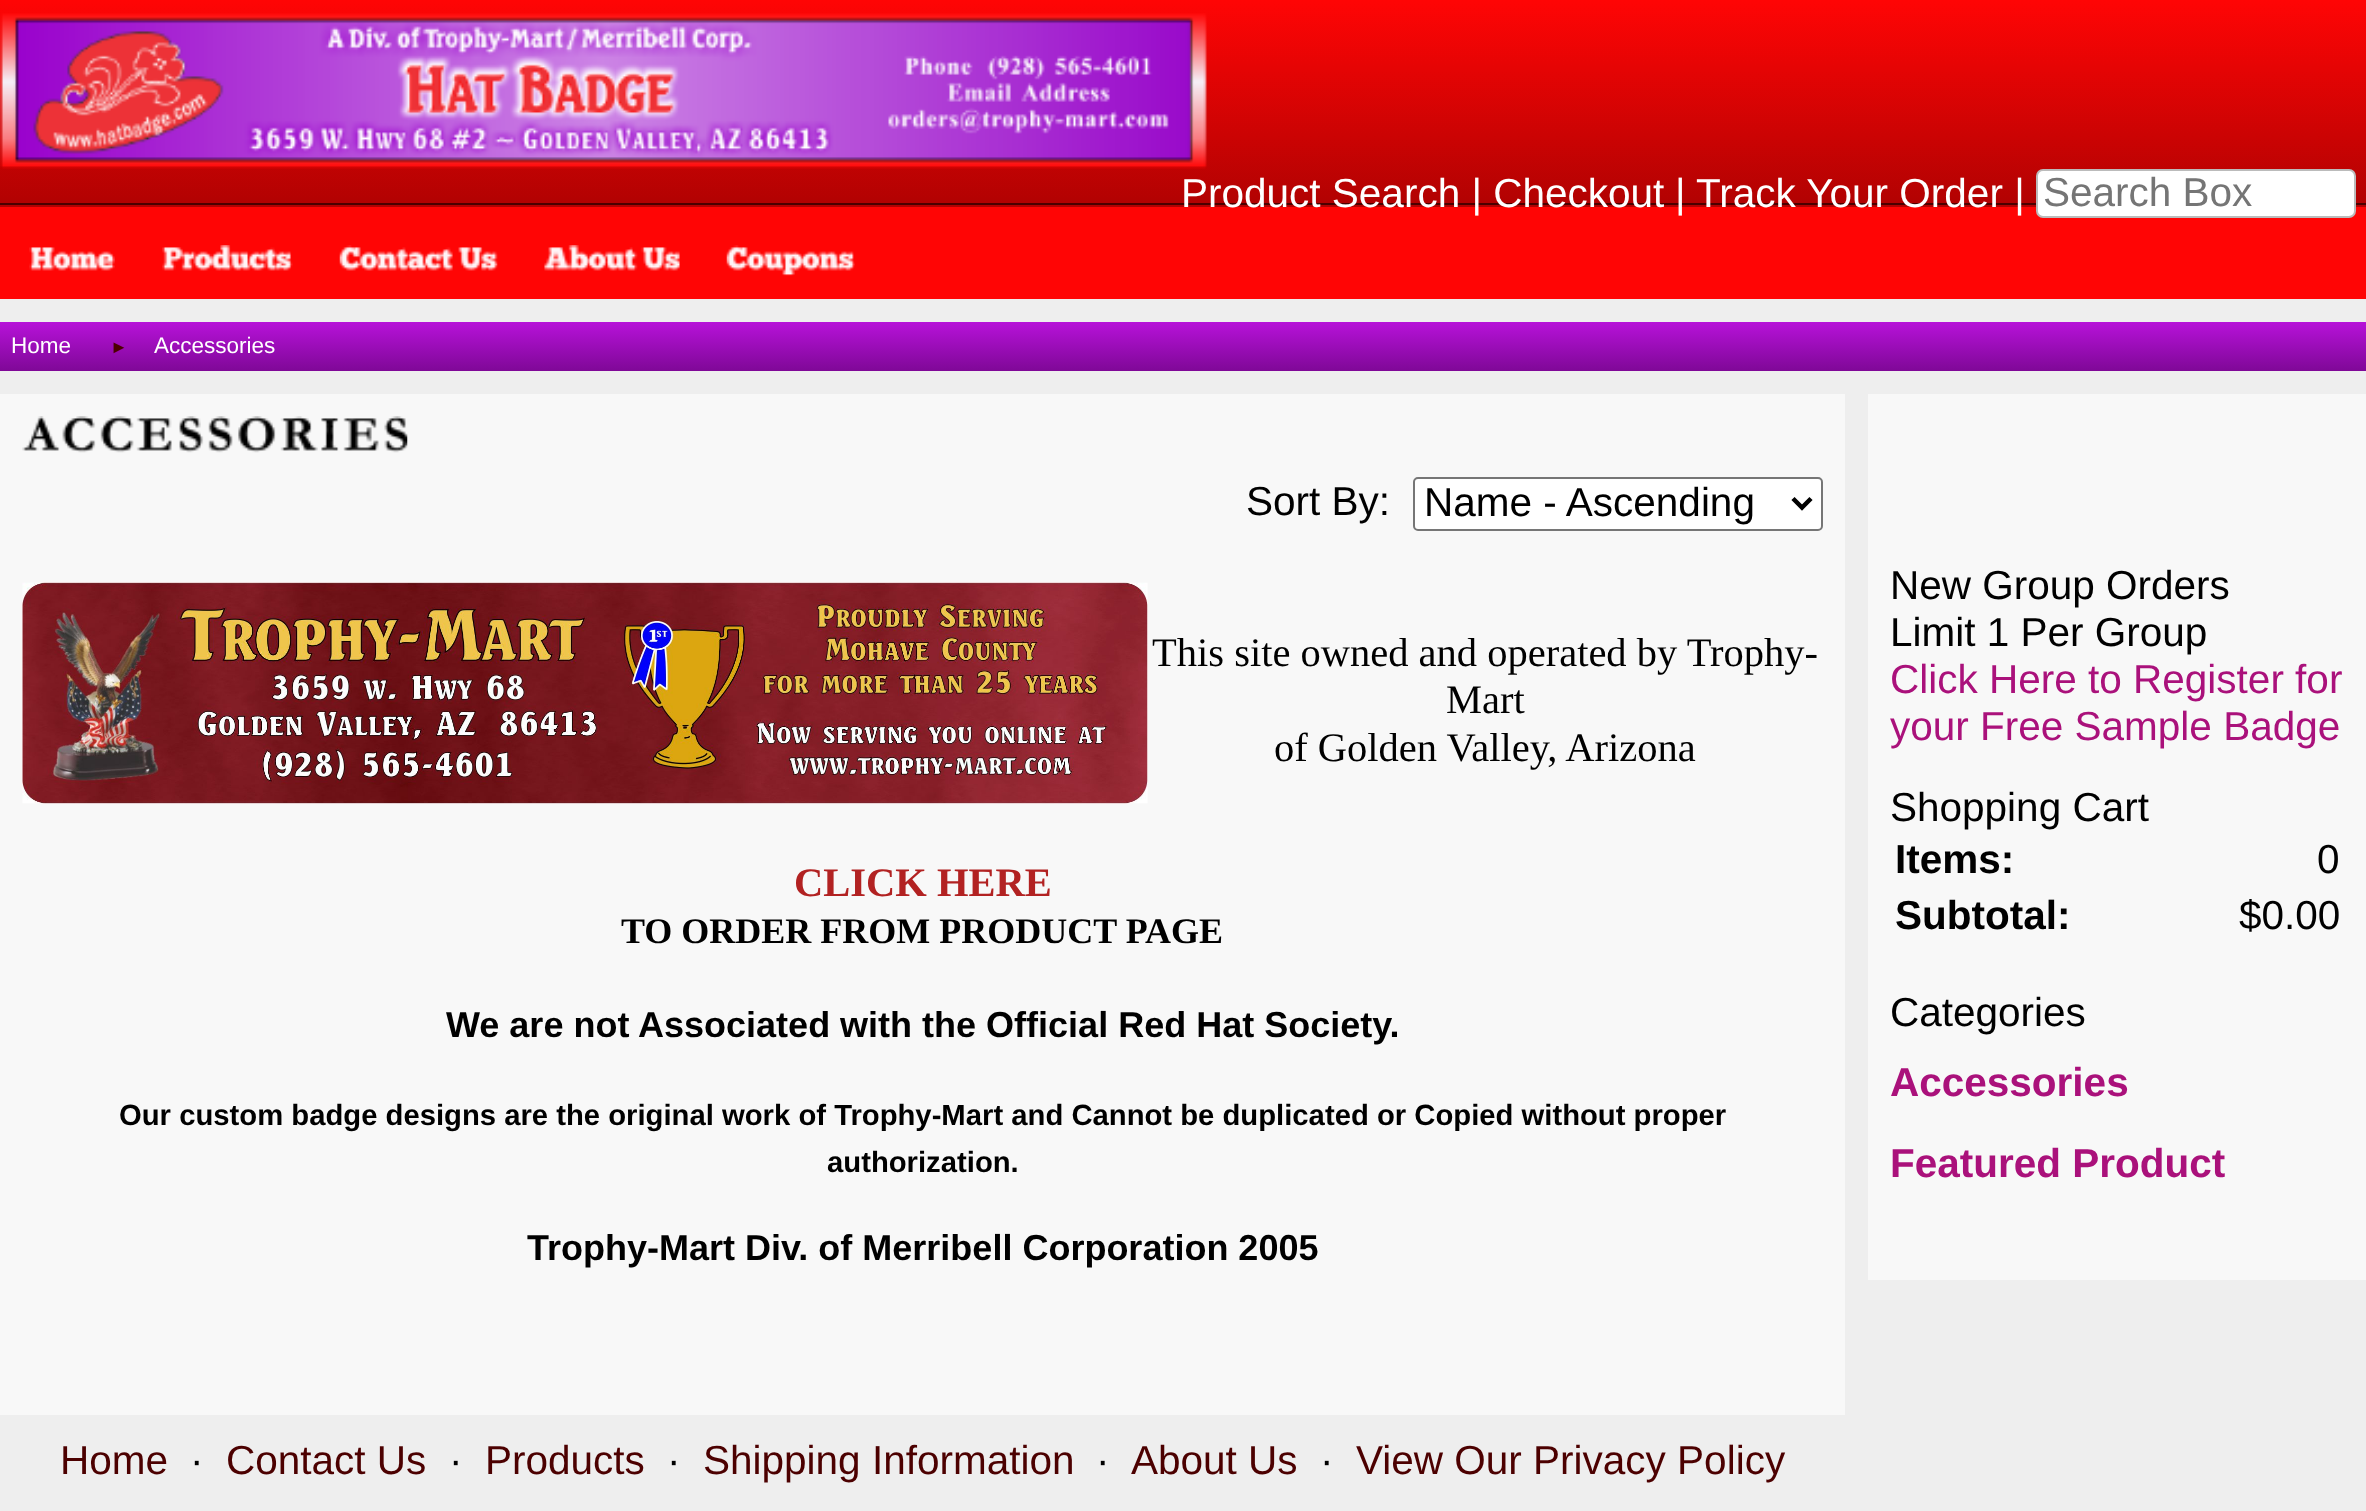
<svg xmlns="http://www.w3.org/2000/svg" width="2366" height="1511" viewBox="0 0 2366 1511">
  <style>
    .t1 { font: 40.5px Liberation Sans; fill: #fff; }
    .t2 { font: 40.5px Liberation Sans; fill: #757575; }
    .t3 { font: 22.5px Liberation Sans; fill: #fff; }
    .t4 { font: 18px Liberation Sans; fill: #4c0000; }
    .t5 { font: 40.5px Liberation Sans; fill: #000; }
    .t6 { font: 40.5px Liberation Serif; fill: #000; }
    .t7 { font: bold 40.5px Liberation Serif; fill: #b22222; }
    .t8 { font: bold 36px Liberation Serif; fill: #000; }
    .t9 { font: bold 36px Liberation Sans; fill: #000; }
    .t10 { font: bold 29.25px Liberation Sans; fill: #000; }
    .t11 { font: 40.5px Liberation Sans; fill: #4c0000; }
    .t12 { font: 40.5px Liberation Sans; fill: #aa117b; }
    .t13 { font: bold 40.5px Liberation Sans; fill: #000; }
    .t14 { font: bold 40.5px Liberation Sans; fill: #aa117b; }
  </style>
  <defs>
    <linearGradient id="g1" gradientUnits="userSpaceOnUse" x1="1184" y1="0" x2="1184" y2="203"><stop offset="0" stop-color="#ff0505"/><stop offset="1" stop-color="#b20202"/></linearGradient>
    <linearGradient id="g2" gradientUnits="userSpaceOnUse" x1="1184" y1="322" x2="1184" y2="371"><stop offset="0" stop-color="#b712d9"/><stop offset="1" stop-color="#7f0897"/></linearGradient>
  </defs>
  <rect width="100%" height="100%" fill="#eee"/>
  <rect x="0" y="0" width="2366" height="203" fill="url(#g1)"/>
  <rect x="0" y="203" width="2366" height="2" fill="#4c0000"/>
  <image x="0" y="13" width="1207" height="156" href="images/1.png"/>
  <rect x="0" y="207" width="2366" height="92" fill="#ff0505"/>
  <rect x="0" y="205" width="2366" height="2" fill="#b20202"/>
  <text x="1181" y="207" class="t1">Product Search | Checkout</text>
  <text x="1675" y="207" class="t1">|</text>
  <text x="1696" y="207" class="t1">Track Your Order |</text>
  <rect x="2037" y="170" width="318" height="47" rx="6" fill="#fff" stroke="#bbb" stroke-width="2"/>
  <text x="2043" y="206" class="t2">Search Box</text>
  <image x="29" y="247" width="86" height="24" href="images/2.png"/>
  <image x="162" y="245" width="131" height="26" href="images/3.png"/>
  <image x="339" y="245" width="159" height="26" href="images/4.png"/>
  <image x="544" y="245" width="136" height="26" href="images/5.png"/>
  <image x="726" y="245" width="129" height="31" href="images/6.png"/>
  <rect x="0" y="322" width="2366" height="49" fill="url(#g2)"/>
  <text x="11" y="353" class="t3">Home</text>
  <text x="110" y="353" class="t4">►</text>
  <text x="154" y="353" class="t3">Accessories</text>
  <rect x="0" y="394" width="1845" height="1021" fill="#f8f8f8"/>
  <image x="22" y="416" width="386" height="37" href="images/7.png"/>
  <text x="1246" y="515" class="t5">Sort By:</text>
  <rect x="1414" y="478" width="408" height="52" rx="4" fill="#fff" stroke="#767676" stroke-width="2"/>
  <path d="M1793 498.5L1802 507.5L1811 498.5" fill="none" stroke="#000" stroke-width="4.5"/>
  <text x="1424" y="516" class="t5">Name - Ascending</text>
  <image x="22" y="582" width="1126" height="222" href="images/8.png"/>
  <text x="1152" y="666" class="t6">This site owned and operated by Trophy-</text>
  <text x="1446" y="713" class="t6">Mart</text>
  <text x="1274" y="761" class="t6">of Golden Valley, Arizona</text>
  <text x="794" y="896" class="t7">CLICK HERE</text>
  <text x="621" y="943" class="t8">TO ORDER FROM PRODUCT PAGE</text>
  <text x="446" y="1037" class="t9">We are not Associated with the Official Red Hat Society.</text>
  <text x="119" y="1125" class="t10">Our custom badge designs are the original work of Trophy-Mart and Cannot be duplicated or Copied without proper</text>
  <text x="827" y="1172" class="t10">authorization.</text>
  <text x="527" y="1260" class="t9">Trophy-Mart Div. of Merribell Corporation 2005</text>
  <text x="60" y="1474" class="t11">Home</text>
  <text x="190" y="1474" class="t5">·</text>
  <text x="226" y="1474" class="t11">Contact Us</text>
  <text x="449" y="1474" class="t5">·</text>
  <text x="485" y="1474" class="t11">Products</text>
  <text x="667" y="1474" class="t5">·</text>
  <text x="703" y="1474" class="t11">Shipping Information</text>
  <text x="1096" y="1474" class="t5">·</text>
  <text x="1131" y="1474" class="t11">About Us</text>
  <text x="1320" y="1474" class="t5">·</text>
  <text x="1356" y="1474" class="t11">View Our Privacy Policy</text>
  <rect x="1868" y="394" width="498" height="886" fill="#f8f8f8"/>
  <text x="1890" y="599" class="t5">New Group Orders</text>
  <text x="1890" y="646" class="t5">Limit 1 Per Group</text>
  <text x="1890" y="693" class="t12">Click Here to Register for</text>
  <text x="1890" y="740" class="t12">your Free Sample Badge</text>
  <text x="1890" y="821" class="t5">Shopping Cart</text>
  <text x="1895" y="873" class="t13">Items:</text>
  <text x="2317" y="873" class="t5">0</text>
  <text x="1895" y="929" class="t13">Subtotal:</text>
  <text x="2239" y="929" class="t5">$0.00</text>
  <text x="1890" y="1026" class="t5">Categories</text>
  <text x="1890" y="1096" class="t14">Accessories</text>
  <text x="1890" y="1177" class="t14">Featured Product</text>
</svg>
